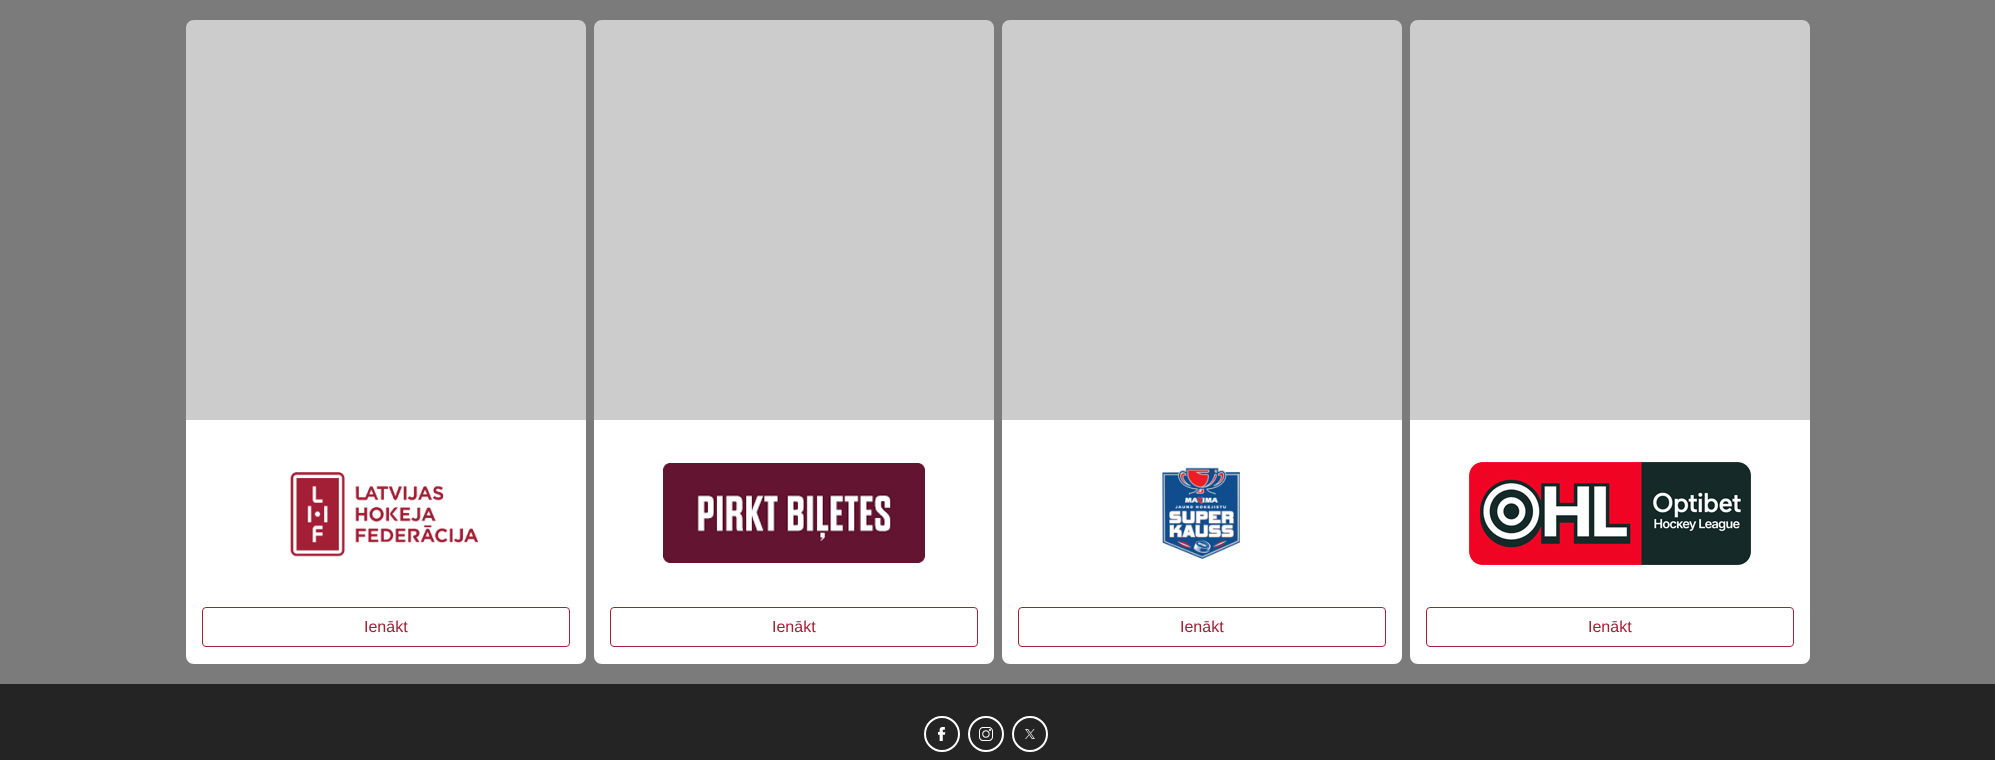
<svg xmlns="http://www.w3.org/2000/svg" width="1995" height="760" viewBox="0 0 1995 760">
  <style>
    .t1 { font: 16px Liberation Sans; fill: #a32035; }
  </style>
  <rect width="100%" height="100%" fill="#7b7b7b"/>
  <path d="M194 20H578C582.5 20 586 23.5 586 28V420H186V28C186 23.5 189.5 20 194 20Z" fill="#ccc"/>
  <path d="M186 420H586V656C586 660.5 582.5 664 578 664H194C189.5 664 186 660.5 186 656Z" fill="#fff"/>
  <image x="290" y="472" width="188" height="85" href="images/1.png"/>
  <rect x="202.5" y="607.5" width="367" height="39" rx="3.5" fill="none" stroke="#a32035"/>
  <text x="364" y="632" class="t1">Ienākt</text>
  <path d="M602 20H986C990.5 20 994 23.5 994 28V420H594V28C594 23.5 597.5 20 602 20Z" fill="#ccc"/>
  <path d="M594 420H994V656C994 660.5 990.5 664 986 664H602C597.5 664 594 660.5 594 656Z" fill="#fff"/>
  <image x="663" y="463" width="262" height="100" href="images/2.png"/>
  <rect x="610.5" y="607.5" width="367" height="39" rx="3.5" fill="none" stroke="#a32035"/>
  <text x="772" y="632" class="t1">Ienākt</text>
  <path d="M1010 20H1394C1398.5 20 1402 23.5 1402 28V420H1002V28C1002 23.5 1005.5 20 1010 20Z" fill="#ccc"/>
  <path d="M1002 420H1402V656C1402 660.5 1398.5 664 1394 664H1010C1005.5 664 1002 660.5 1002 656Z" fill="#fff"/>
  <image x="1162" y="467" width="78" height="94" href="images/3.png"/>
  <rect x="1018.5" y="607.5" width="367" height="39" rx="3.5" fill="none" stroke="#a32035"/>
  <text x="1180" y="632" class="t1">Ienākt</text>
  <path d="M1418 20H1802C1806.5 20 1810 23.5 1810 28V420H1410V28C1410 23.5 1413.5 20 1418 20Z" fill="#ccc"/>
  <path d="M1410 420H1810V656C1810 660.5 1806.5 664 1802 664H1418C1413.5 664 1410 660.5 1410 656Z" fill="#fff"/>
  <image x="1469" y="460" width="282" height="111" href="images/4.png"/>
  <rect x="1426.5" y="607.5" width="367" height="39" rx="3.5" fill="none" stroke="#a32035"/>
  <text x="1588" y="632" class="t1">Ienākt</text>
  <rect x="0" y="684" width="1995" height="76" fill="#242424"/>
  <circle cx="942" cy="734" r="17" fill="none" stroke="#fff" stroke-width="2"/>
  <image x="938" y="727" width="8" height="14" href="images/5.png"/>
  <circle cx="986" cy="734" r="17" fill="none" stroke="#fff" stroke-width="2"/>
  <image x="979" y="727" width="14" height="14" href="images/6.png"/>
  <circle cx="1030" cy="734" r="17" fill="none" stroke="#fff" stroke-width="2"/>
  <image x="1025" y="729" width="10" height="10" href="images/7.png"/>
</svg>
